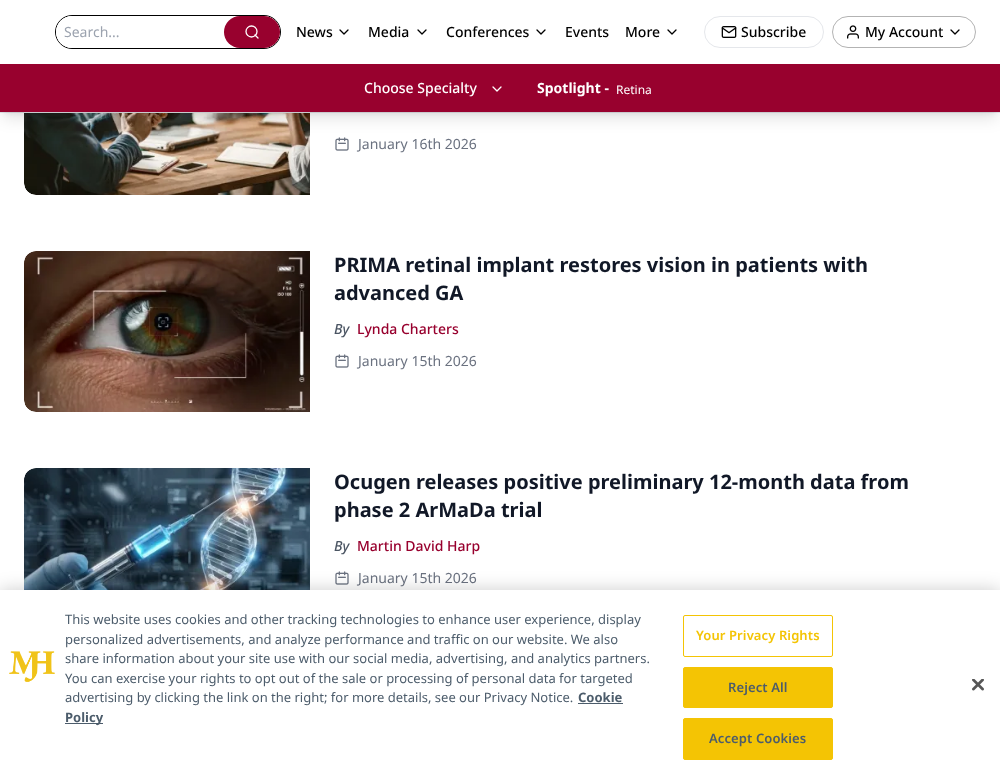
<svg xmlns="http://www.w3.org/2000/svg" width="1000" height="780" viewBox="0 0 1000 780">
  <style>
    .t1 { font: 14px Noto Sans; fill: #9ca3af; }
    .t2 { font: 500 14px Noto Sans; fill: #000; }
    .t3 { font: 500 14px Noto Sans; fill: #fff; }
    .t4 { font: bold 14px Noto Sans; fill: #fff; }
    .t5 { font: 12px Noto Sans; fill: #fff; }
    .t6 { font: 14px Noto Sans; fill: #6b7280; }
    .t7 { font: bold 20px Noto Sans; fill: #111827; }
    .t8 { font: italic 500 14px Noto Sans; fill: #4b5563; }
    .t9 { font: 500 14px Noto Sans; fill: #98012e; }
    .t10 { font: 13px Noto Sans; fill: #4c5c6b; }
    .t11 { font: bold 13px Noto Sans; fill: #4c5c6b; }
    .t12 { font: 600 13px Noto Sans; letter-spacing: 0.1px; fill: #f4c404; }
    .t13 { font: 600 13px Noto Sans; letter-spacing: 0.1px; fill: #4c5c6b; }
  </style>
  <rect width="100%" height="100%" fill="#fff"/>
  <rect x="0" y="112" width="1000" height="1" fill="#e5e7eb"/>
  <rect x="55.5" y="15.5" width="225" height="33" rx="16.5" fill="none" stroke="#000"/>
  <rect x="56" y="16" width="224" height="32" rx="16" fill="#fff"/>
  <text x="64" y="37" class="t1">Search...</text>
  <rect x="224" y="16" width="56" height="32" rx="16" fill="#98012e"/>
  <circle cx="251.5" cy="31.5" r="5.5" fill="none" stroke="#fff" stroke-width="1.3"/>
  <path d="M258 38L255 35" fill="none" stroke="#fff" stroke-width="1.3" stroke-linecap="round" stroke-linejoin="round"/>
  <text x="296" y="37" class="t2">News</text>
  <path d="M340 30L344 34L348 30" fill="none" stroke="#000" stroke-width="1.3" stroke-linecap="round" stroke-linejoin="round"/>
  <text x="368" y="37" class="t2">Media</text>
  <path d="M418 30L422 34L426 30" fill="none" stroke="#000" stroke-width="1.3" stroke-linecap="round" stroke-linejoin="round"/>
  <text x="446" y="37" class="t2">Conferences</text>
  <path d="M537 30L541 34L545 30" fill="none" stroke="#000" stroke-width="1.3" stroke-linecap="round" stroke-linejoin="round"/>
  <text x="565" y="37" class="t2">Events</text>
  <text x="625" y="37" class="t2">More</text>
  <path d="M668 30L672 34L676 30" fill="none" stroke="#000" stroke-width="1.3" stroke-linecap="round" stroke-linejoin="round"/>
  <rect x="704.5" y="16.5" width="119" height="31" rx="15.5" fill="none" stroke="#e5e7eb"/>
  <image x="721" y="26" width="16" height="12" href="images/1.png"/>
  <text x="741" y="37" class="t2">Subscribe</text>
  <rect x="832.5" y="16.5" width="143" height="31" rx="15.5" fill="none" stroke="#b3b3b3"/>
  <image x="847" y="25" width="12" height="14" href="images/2.png"/>
  <text x="865" y="37" class="t2">My Account</text>
  <path d="M951 30L955 34L959 30" fill="none" stroke="#000" stroke-width="1.3" stroke-linecap="round" stroke-linejoin="round"/>
  <image x="24" y="113" width="286" height="82" href="images/3.png"/>
  <rect x="4" y="72" width="992" height="40" fill="#0000001a" filter="blur(3px)"/>
  <image x="335" y="137" width="14" height="14" href="images/4.png"/>
  <rect x="3" y="77" width="994" height="42" fill="#0000001a" filter="blur(7.5px)"/>
  <rect x="0" y="64" width="1000" height="48" fill="#98012e"/>
  <text x="364" y="93" class="t3">Choose Specialty</text>
  <path d="M493 87L497 91L501 87" fill="none" stroke="#fff" stroke-width="1.3" stroke-linecap="round" stroke-linejoin="round"/>
  <text x="537" y="93" class="t4">Spotlight -</text>
  <text x="616" y="94" class="t5">Retina</text>
  <text x="358" y="149" class="t6">January 16th 2026</text>
  <image x="24" y="251" width="286" height="161" href="images/5.png"/>
  <text x="334" y="272" class="t7">PRIMA retinal implant restores vision in patients with</text>
  <text x="334" y="300" class="t7">advanced GA</text>
  <text x="334" y="334" class="t8">By</text>
  <text x="357" y="334" class="t9">Lynda Charters</text>
  <image x="335" y="354" width="14" height="14" href="images/4.png"/>
  <text x="358" y="366" class="t6">January 15th 2026</text>
  <image x="24" y="468" width="286" height="122" href="images/6.png"/>
  <text x="334" y="489" class="t7">Ocugen releases positive preliminary 12-month data from</text>
  <text x="334" y="517" class="t7">phase 2 ArMaDa trial</text>
  <text x="334" y="551" class="t8">By</text>
  <text x="357" y="551" class="t9">Martin David Harp</text>
  <image x="335" y="571" width="14" height="14" href="images/4.png"/>
  <text x="358" y="583" class="t6">January 15th 2026</text>
  <rect x="0" y="590" width="1000" height="190" fill="#00000033" filter="blur(9px)"/>
  <rect x="0" y="590" width="1000" height="190" fill="#fff"/>
  <image x="9" y="651" width="46" height="31" href="images/7.png"/>
  <text x="65" y="624" class="t10">This website uses cookies and other tracking technologies to enhance user experience, display</text>
  <text x="65" y="644" class="t10">personalized advertisements, and analyze performance and traffic on our website. We also</text>
  <text x="65" y="663" class="t10">share information about your site use with our social media, advertising, and analytics partners.</text>
  <text x="65" y="683" class="t10">You can exercise your rights to opt out of the sale or processing of personal data for targeted</text>
  <text x="65" y="702" class="t10">advertising by clicking the link on the right; for more details, see our Privacy Notice.</text>
  <text x="578" y="702" class="t11">Cookie</text>
  <rect x="578" y="703" width="45" height="1" fill="#4c5c6b"/>
  <rect x="65" y="723" width="38" height="1" fill="#4c5c6b"/>
  <text x="65" y="722" class="t11">Policy</text>
  <rect x="683.5" y="615.5" width="149" height="41" rx="1.5" fill="none" stroke="#f4c404"/>
  <text x="696" y="640" class="t12">Your Privacy Rights</text>
  <rect x="683.5" y="667.5" width="149" height="40" rx="1.5" fill="#f4c404" stroke="#f4c404"/>
  <text x="728" y="692" class="t13">Reject All</text>
  <rect x="683.5" y="718.5" width="149" height="41" rx="1.5" fill="#f4c404" stroke="#f4c404"/>
  <text x="709" y="743" class="t13">Accept Cookies</text>
  <image x="972" y="679" width="12" height="12" href="images/8.png"/>
</svg>
